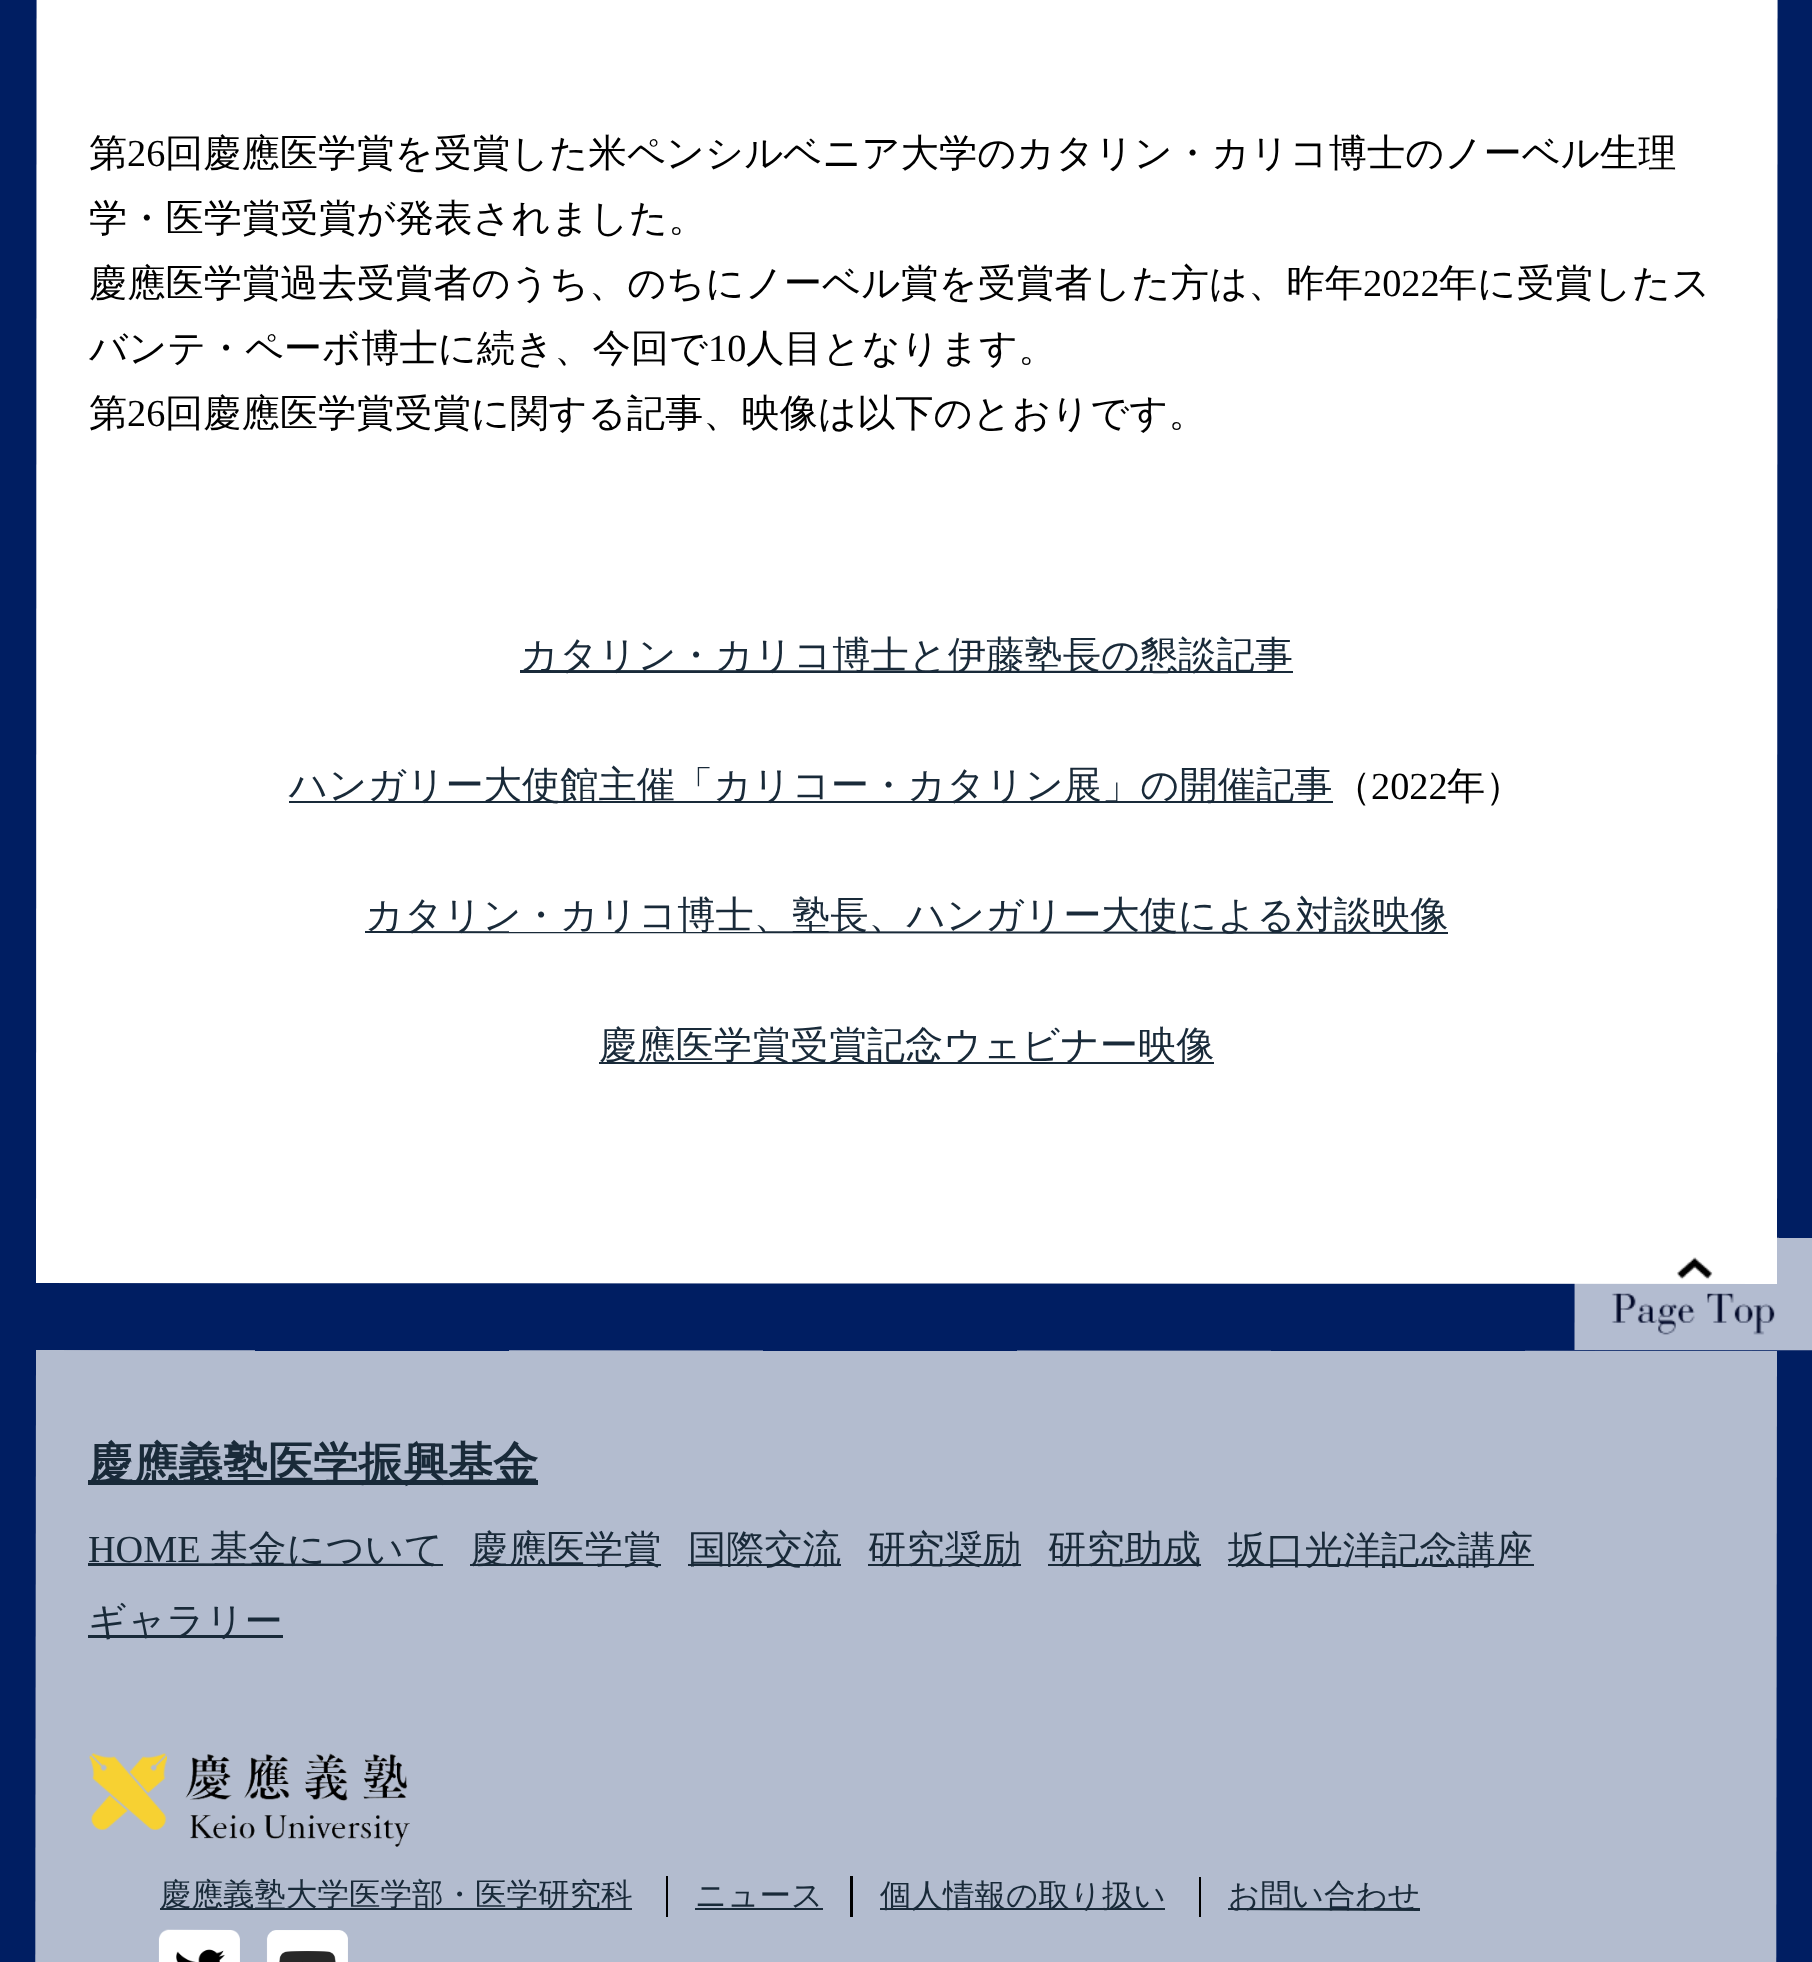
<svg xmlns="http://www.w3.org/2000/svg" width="1812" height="1962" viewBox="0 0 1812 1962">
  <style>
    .t1 { font: 500 38.25px WenQuanYi Zen Hei; fill: #000; }
    .t2 { font: 38.25px Liberation Serif; fill: #000; }
    .t3 { font: 500 38.25px WenQuanYi Zen Hei; fill: #192a39; }
    .t4 { font: bold 45px WenQuanYi Zen Hei; fill: #192a39; }
    .t5 { font: 38.25px Liberation Serif; fill: #192a39; }
    .t6 { font: 500 31.5px WenQuanYi Zen Hei; fill: #192a39; }
  </style>
  <rect width="100%" height="100%" fill="#001e62"/>
  <path d="M37-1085L1778-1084L1777 1284L36 1283Z" fill="#fff"/>
  <text x="89" y="166" class="t1">第</text>
  <text x="127" y="166" class="t2">26</text>
  <text x="165" y="166" class="t1">回慶應医学賞を受賞した米ペンシルベニア大学のカタリン・カリコ博士のノーベル生理</text>
  <text x="89" y="231" class="t1">学・医学賞受賞が発表されました。</text>
  <text x="89" y="296" class="t1">慶應医学賞過去受賞者のうち、のちにノーベル賞を受賞者した方は、昨年</text>
  <text x="1363" y="296" class="t2">2022</text>
  <text x="1439" y="296" class="t1">年に受賞したス</text>
  <text x="89" y="361" class="t1">バンテ・ペーボ博士に続き、今回で</text>
  <text x="708" y="361" class="t2">10</text>
  <text x="746" y="361" class="t1">人目となります。</text>
  <text x="89" y="426" class="t1">第</text>
  <text x="127" y="426" class="t2">26</text>
  <text x="165" y="426" class="t1">回慶應医学賞受賞に関する記事、映像は以下のとおりです。</text>
  <path d="M520 670L1293 671V673H520Z" fill="#192a39"/>
  <text x="520" y="668" class="t3">カタリン・カリコ博士と伊藤塾長の懇談記事</text>
  <rect x="289" y="801" width="1044" height="2" fill="#192a39"/>
  <text x="289" y="798" class="t3">ハンガリー大使館主催「カリコー・カタリン展」の開催記事</text>
  <text x="1333" y="799" class="t1">（</text>
  <text x="1371" y="799" class="t2">2022</text>
  <text x="1447" y="799" class="t1">年）</text>
  <path d="M365 931L1448 932V934L365 933Z" fill="#192a39"/>
  <text x="365" y="928" class="t3">カタリン・カリコ博士、塾長、ハンガリー大使による対談映像</text>
  <rect x="599" y="1062" width="615" height="2" fill="#192a39"/>
  <text x="599" y="1058" class="t3">慶應医学賞受賞記念ウェビナー映像</text>
  <path d="M36 1350L1777 1351L1776 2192L35 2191Z" fill="#b3bccf"/>
  <image x="1574" y="1237" width="238" height="114" href="images/1.png"/>
  <rect x="88" y="1480" width="450" height="5" fill="#192a39"/>
  <text x="88" y="1479" class="t4">慶應義塾医学振興基金</text>
  <text x="88" y="1562" class="t5">HOME</text>
  <path d="M88 1563L443 1564V1566H88Z" fill="#192a39"/>
  <text x="210" y="1562" class="t3">基金について</text>
  <rect x="470" y="1564" width="191" height="2" fill="#192a39"/>
  <text x="470" y="1562" class="t3">慶應医学賞</text>
  <rect x="688" y="1564" width="153" height="2" fill="#192a39"/>
  <text x="688" y="1562" class="t3">国際交流</text>
  <rect x="868" y="1564" width="153" height="2" fill="#192a39"/>
  <text x="868" y="1562" class="t3">研究奨励</text>
  <rect x="1048" y="1564" width="153" height="2" fill="#192a39"/>
  <text x="1048" y="1562" class="t3">研究助成</text>
  <rect x="1228" y="1564" width="306" height="2" fill="#192a39"/>
  <text x="1228" y="1563" class="t3">坂口光洋記念講座</text>
  <rect x="88" y="1635" width="195" height="3" fill="#192a39"/>
  <text x="88" y="1634" class="t3">ギャラリー</text>
  <image x="89" y="1753" width="321" height="94" href="images/2.png"/>
  <rect x="666" y="1876" width="2" height="41" fill="#000"/>
  <rect x="160" y="1908" width="472" height="2" fill="#192a39"/>
  <text x="160" y="1905" class="t6">慶應義塾大学医学部・医学研究科</text>
  <rect x="850" y="1876" width="3" height="41" fill="#000"/>
  <text x="695" y="1906" class="t6">ニュース</text>
  <rect x="695" y="1908" width="128" height="2" fill="#192a39"/>
  <rect x="1199" y="1877" width="2" height="40" fill="#000"/>
  <rect x="880" y="1908" width="285" height="2" fill="#192a39"/>
  <text x="880" y="1906" class="t6">個人情報の取り扱い</text>
  <path d="M1228 1908H1420V1911L1228 1910Z" fill="#192a39"/>
  <text x="1228" y="1906" class="t6">お問い合わせ</text>
  <image x="158" y="1929" width="82" height="33" href="images/3.png"/>
  <image x="266" y="1930" width="82" height="32" href="images/4.png"/>
</svg>
